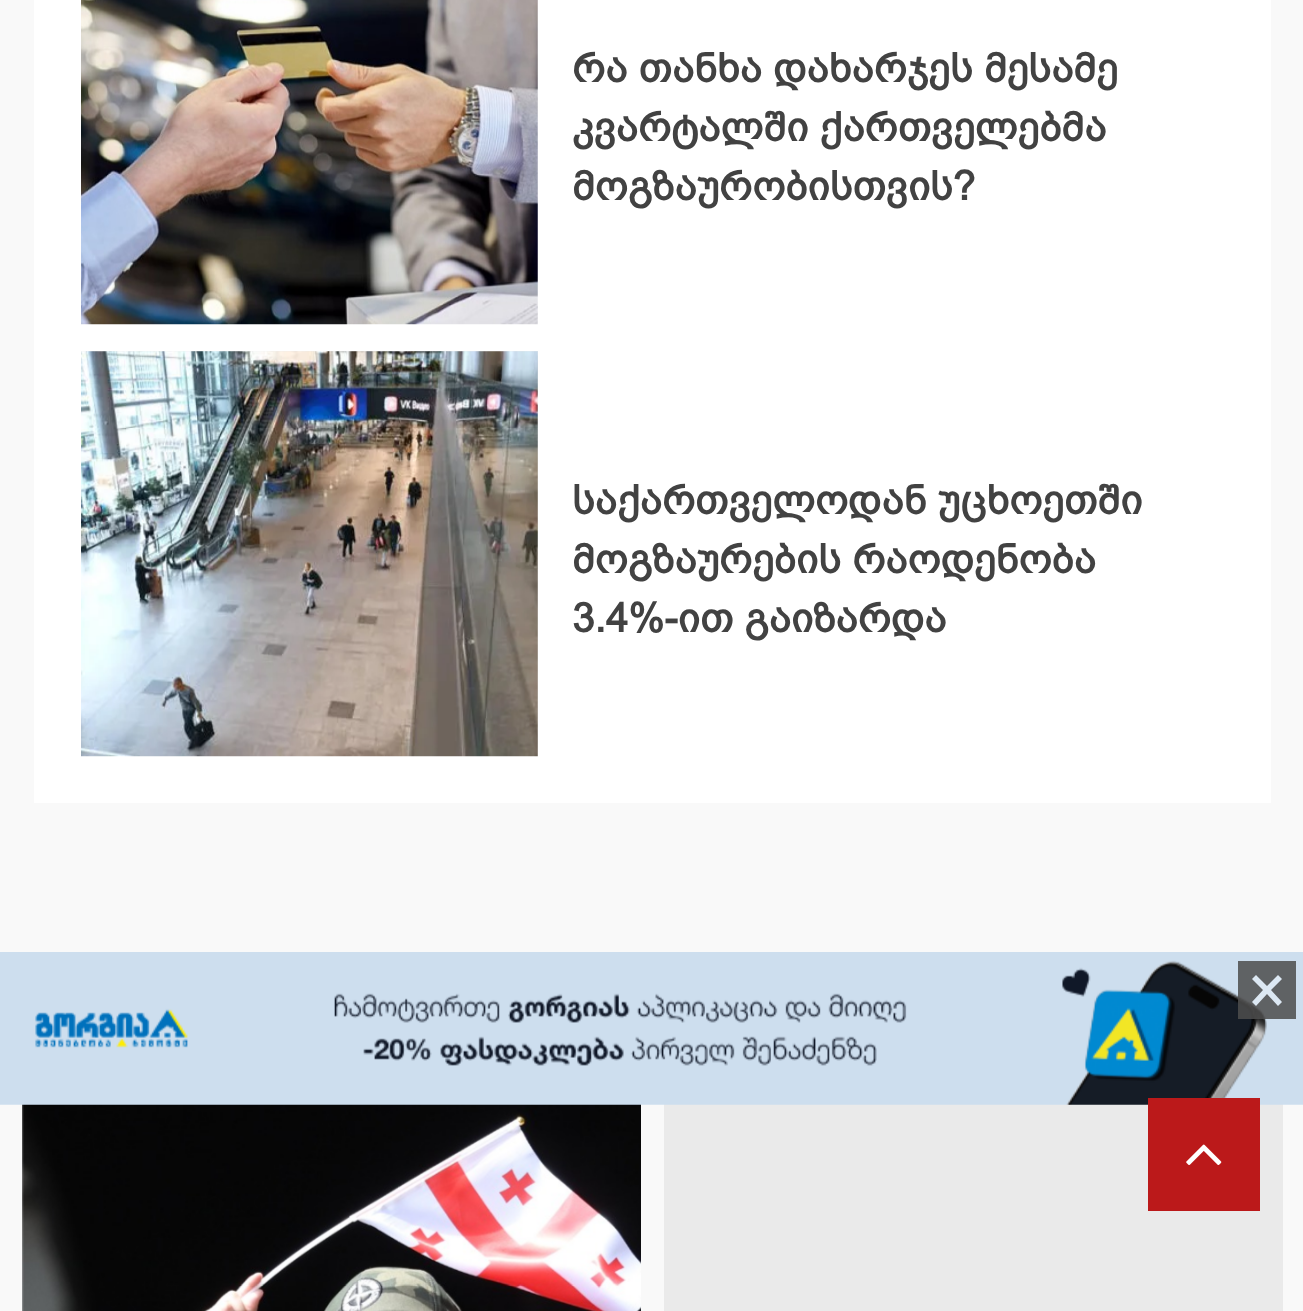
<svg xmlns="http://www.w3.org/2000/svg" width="1303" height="1311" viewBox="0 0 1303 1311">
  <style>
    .t1 { font: bold 40.5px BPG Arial; fill: #424242; }
  </style>
  <defs>
    <clipPath id="clip1"><rect x="1238" y="961" width="58" height="58"/></clipPath>
  </defs>
  <rect width="100%" height="100%" fill="#f9f9f9"/>
  <rect x="34" y="0" width="1237" height="803" fill="#fff"/>
  <image x="81" y="0" width="457" height="325" href="images/1.png"/>
  <text x="572" y="82" class="t1">რა თანხა დახარჯეს მესამე</text>
  <text x="572" y="141" class="t1">კვარტალში ქართველებმა</text>
  <text x="572" y="200" class="t1">მოგზაურობისთვის?</text>
  <rect x="81" y="351" width="457" height="405" fill="#eaeaea"/>
  <image x="81" y="351" width="457" height="406" href="images/2.png"/>
  <text x="572" y="514" class="t1">საქართველოდან უცხოეთში</text>
  <text x="572" y="573" class="t1">მოგზაურების რაოდენობა</text>
  <text x="572" y="632" class="t1">3.4%-ით გაიზარდა</text>
  <image x="22" y="1104" width="619" height="207" href="images/5.png"/>
  <rect x="664" y="1104" width="619" height="207" fill="#eaeaea"/>
  <image x="0" y="952" width="1303" height="153" href="images/3.png"/>
  <rect x="1238" y="961" width="58" height="58" fill="#ffffff4d"/>
  <g clip-path="url(#clip1)">
    <path d="M1238 961V1020H1297V961ZM1278 1006L1267 994L1256 1006L1252 1002L1263 990L1252 979L1256 975L1267 986L1278 975L1282 979L1271 990L1282 1002Z" fill="#404040cc"/>
  </g>
  <rect x="1148" y="1098" width="112" height="113" fill="#bb191a"/>
  <image x="1186" y="1144" width="36" height="21" href="images/4.png"/>
</svg>
